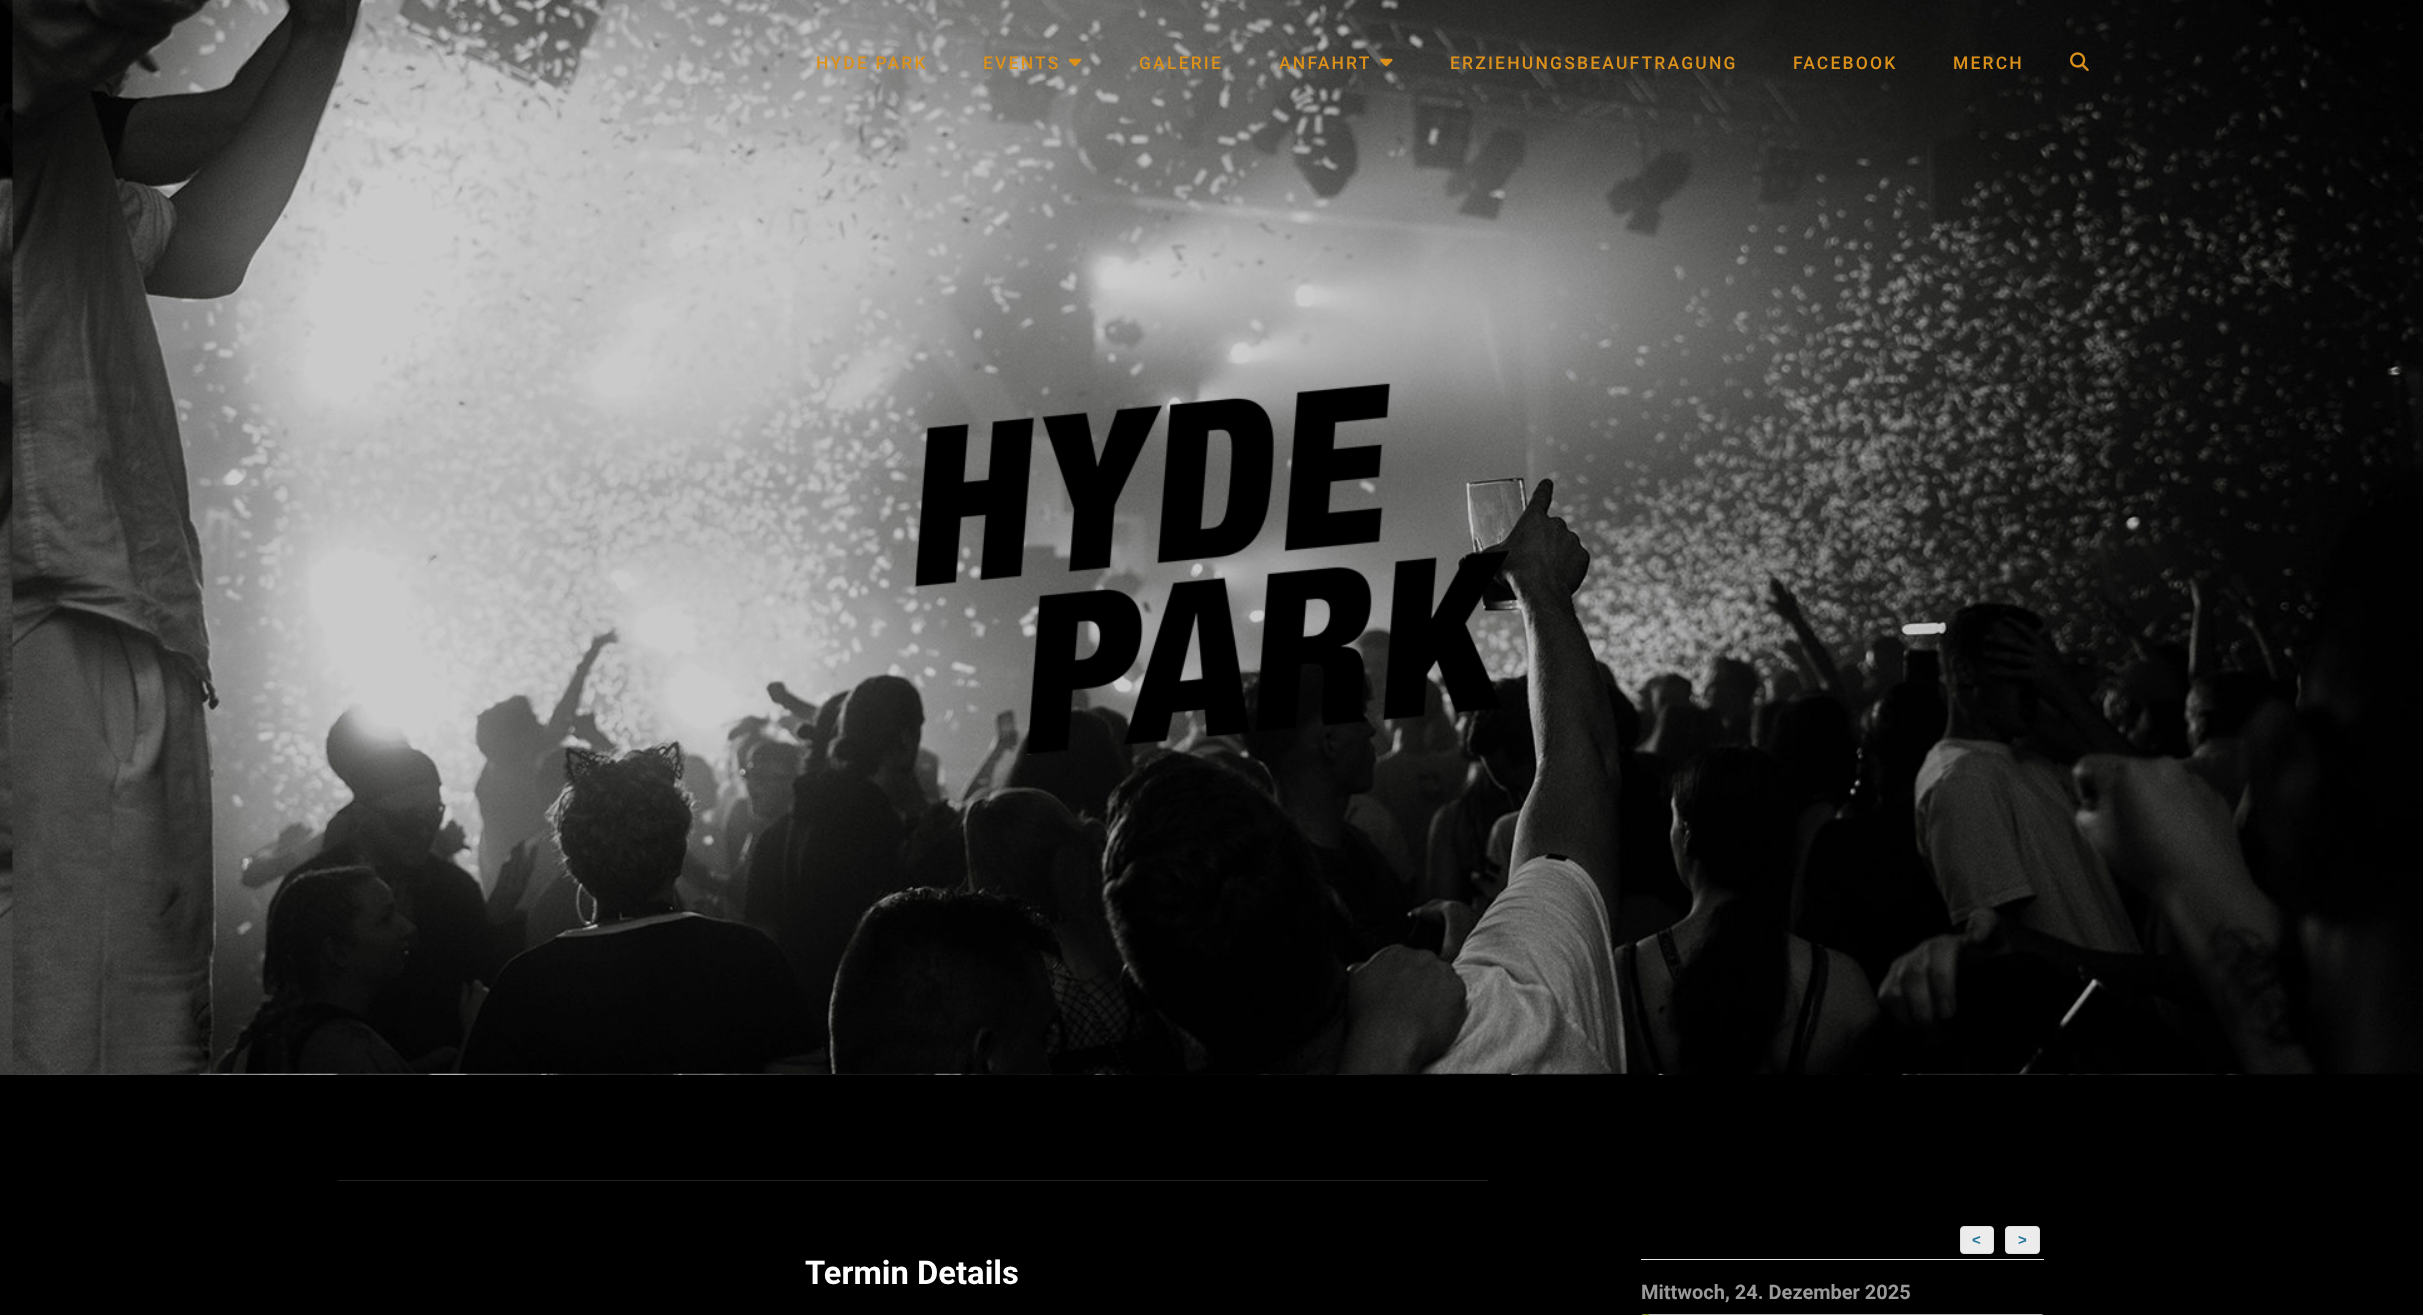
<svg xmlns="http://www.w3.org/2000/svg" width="2423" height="1315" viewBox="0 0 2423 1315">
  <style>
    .t1 { font: 500 17.5px Roboto; letter-spacing: 2.2px; fill: #dc911b; }
    .t2 { font: bold 32.75px Roboto; fill: #fff; }
    .t3 { font: bold 15px Liberation Sans; fill: #21759b; }
    .t4 { font: bold 20px Roboto; fill: #999; }
  </style>
  <rect width="100%" height="100%" fill="#000"/>
  <image x="0" y="0" width="2423" height="1075" href="images/1.png"/>
  <image x="12" y="0" width="2411" height="1074" href="images/2.png"/>
  <image x="915" y="383" width="594" height="373" href="images/3.png"/>
  <text x="816" y="69" class="t1">HYDE PARK</text>
  <text x="983" y="69" class="t1">EVENTS</text>
  <image x="1068" y="58" width="14" height="9" href="images/4.png"/>
  <text x="1139" y="69" class="t1">GALERIE</text>
  <text x="1279" y="69" class="t1">ANFAHRT</text>
  <image x="1380" y="58" width="13" height="9" href="images/5.png"/>
  <text x="1450" y="69" class="t1">ERZIEHUNGSBEAUFTRAGUNG</text>
  <text x="1793" y="69" class="t1">FACEBOOK</text>
  <text x="1953" y="69" class="t1">MERCH</text>
  <image x="2070" y="52" width="19" height="20" href="images/6.png"/>
  <rect x="338" y="1180" width="1150" height="1" fill="#222"/>
  <text x="805" y="1284" class="t2">Termin Details</text>
  <rect x="1960.5" y="1226.5" width="33" height="27" rx="3.5" fill="#ececec" stroke="#dfdfdf"/>
  <text x="1972" y="1245" class="t3">&lt;</text>
  <rect x="2005.5" y="1226.5" width="34" height="27" rx="3.5" fill="#ececec" stroke="#dfdfdf"/>
  <text x="2018" y="1245" class="t3">&gt;</text>
  <rect x="1641" y="1259" width="403" height="1" fill="#ececec"/>
  <text x="1641" y="1299" class="t4">Mittwoch, 24. Dezember 2025</text>
  <rect x="1641" y="1314" width="403" height="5" rx="4" fill="#b1b1b1"/>
  <path d="M1645 1314H1649V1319H1645C1643 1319 1641 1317 1641 1315V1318C1641 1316 1643 1314 1645 1314Z" fill="#7b941c"/>
</svg>
